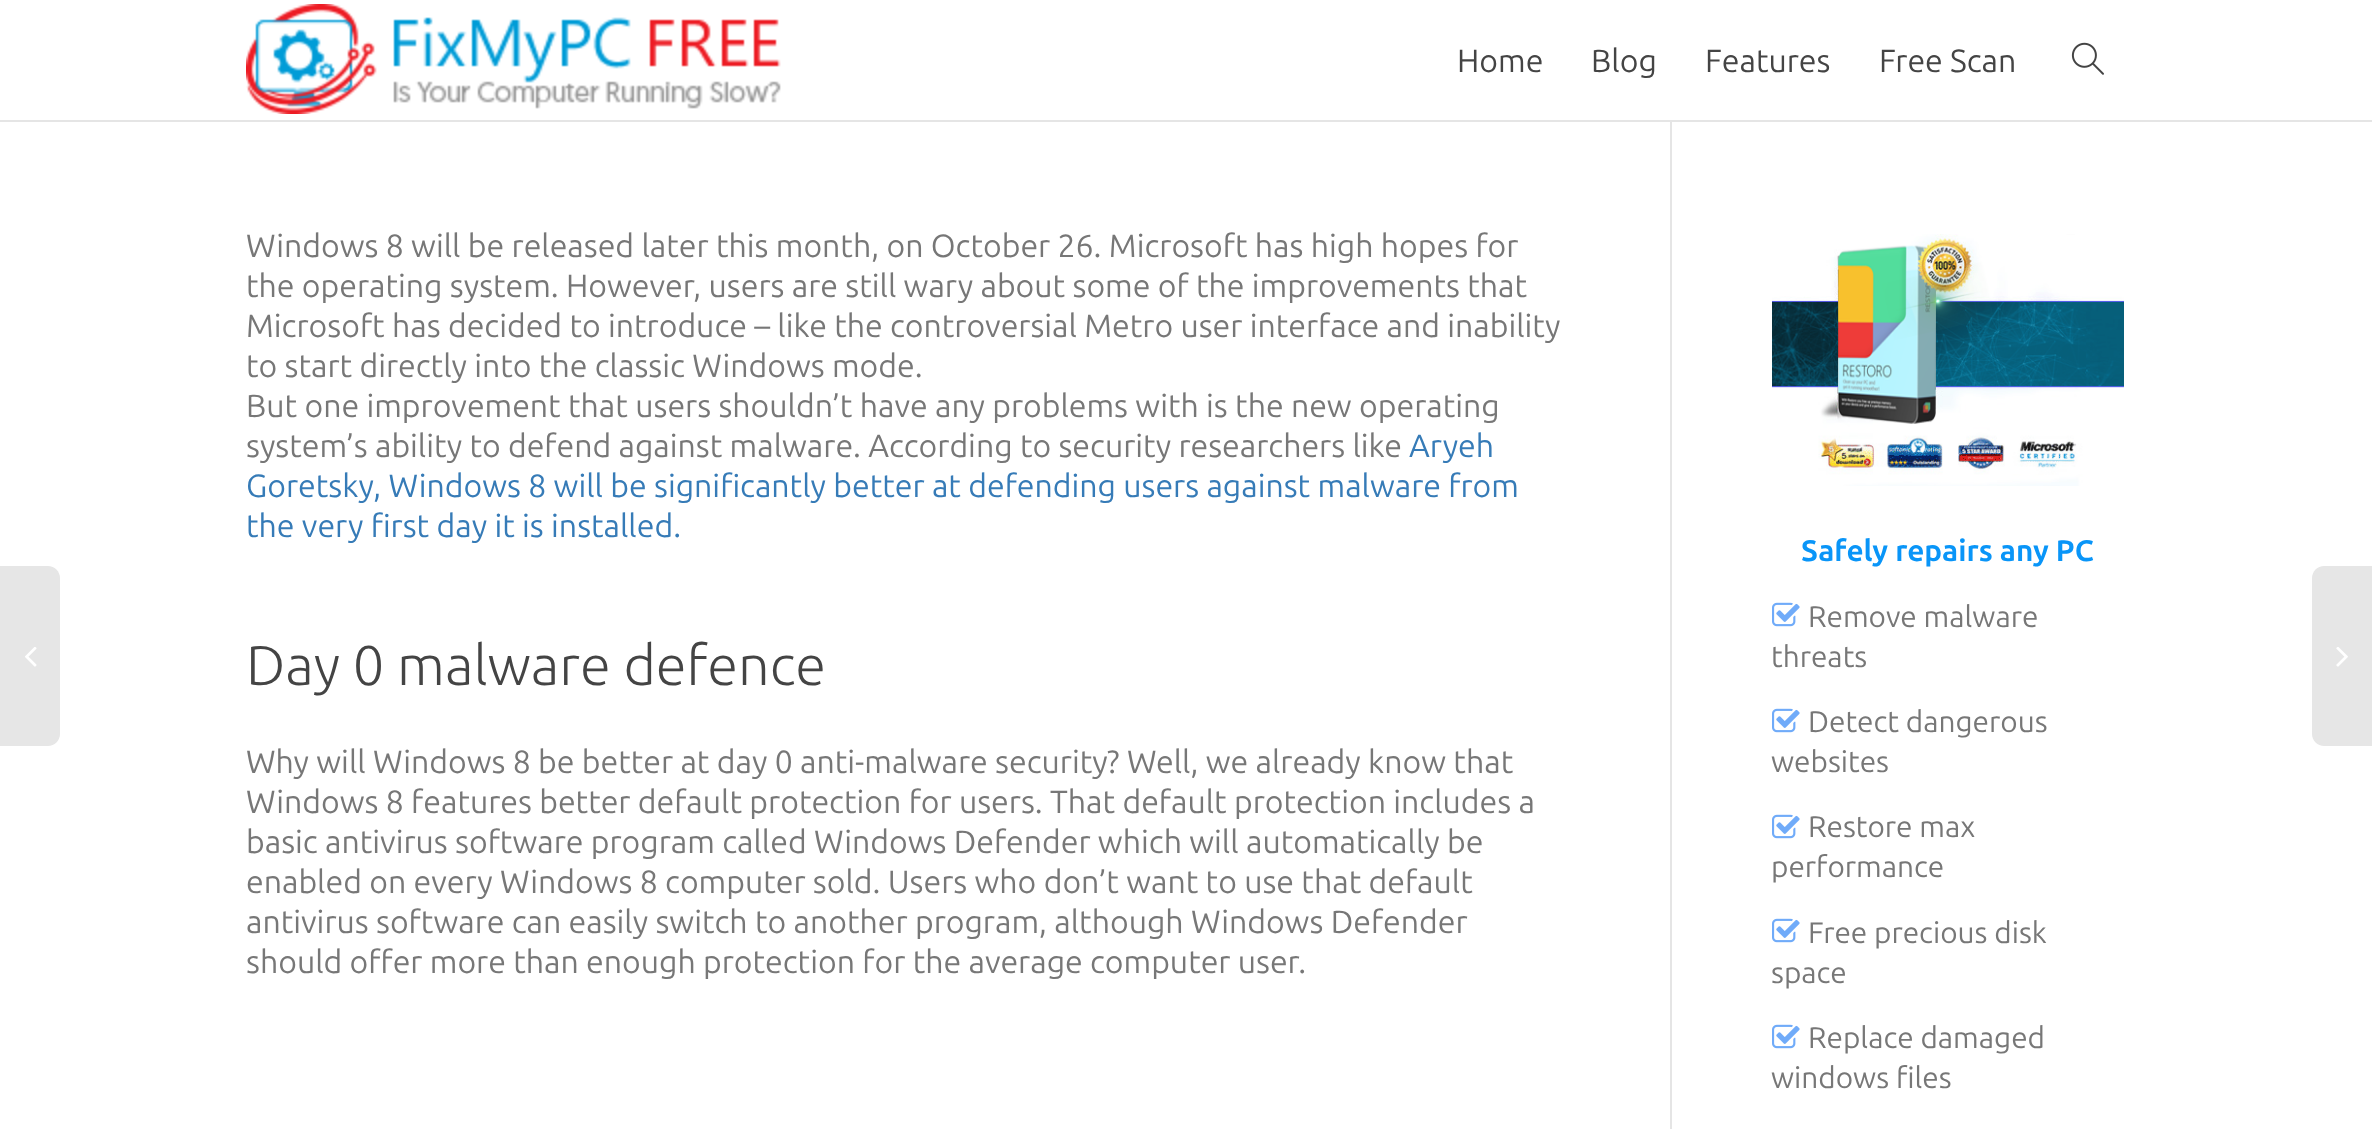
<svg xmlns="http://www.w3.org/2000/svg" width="2372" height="1129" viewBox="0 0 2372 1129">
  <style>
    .t1 { font: 32px Ubuntu; fill: #444; }
    .t2 { font: 32px Ubuntu; fill: #777; }
    .t3 { font: 32px Ubuntu; fill: #367bb7; }
    .t4 { font: 300 56px Ubuntu; fill: #444; }
    .t5 { font: bold 29.75px Ubuntu; fill: #0995f8; }
    .t6 { font: 29.75px Ubuntu; fill: #777; }
  </style>
  <rect width="100%" height="100%" fill="#fff"/>
  <rect x="1670" y="118" width="2" height="1011" fill="#e5e5e5"/>
  <rect x="1670" y="118" width="2" height="2" fill="#fff"/>
  <rect x="0" y="120" width="2372" height="2" fill="#e5e5e5"/>
  <image x="246" y="4" width="535" height="110" href="images/1.png"/>
  <text x="1457" y="72" class="t1">Home</text>
  <text x="1591" y="72" class="t1">Blog</text>
  <text x="1705" y="72" class="t1">Features</text>
  <text x="1879" y="72" class="t1">Free Scan</text>
  <image x="2071" y="42" width="33" height="33" href="images/2.png"/>
  <text x="246" y="257" class="t2">Windows 8 will be released later this month, on October 26. Microsoft has high hopes for</text>
  <text x="246" y="297" class="t2">the operating system. However, users are still wary about some of the improvements that</text>
  <text x="246" y="337" class="t2">Microsoft has decided to introduce – like the controversial Metro user interface and inability</text>
  <text x="246" y="377" class="t2">to start directly into the classic Windows mode.</text>
  <text x="246" y="417" class="t2">But one improvement that users shouldn’t have any problems with is the new operating</text>
  <text x="246" y="457" class="t2">system’s ability to defend against malware. According to security researchers like</text>
  <text x="1409" y="457" class="t3">Aryeh</text>
  <text x="246" y="497" class="t3">Goretsky, Windows 8 will be significantly better at defending users against malware from</text>
  <text x="246" y="537" class="t3">the very first day it is installed.</text>
  <text x="246" y="685" class="t4">Day 0 malware defence</text>
  <text x="246" y="773" class="t2">Why will Windows 8 be better at day 0 anti-malware security? Well, we already know that</text>
  <text x="246" y="813" class="t2">Windows 8 features better default protection for users. That default protection includes a</text>
  <text x="246" y="853" class="t2">basic antivirus software program called Windows Defender which will automatically be</text>
  <text x="246" y="893" class="t2">enabled on every Windows 8 computer sold. Users who don’t want to use that default</text>
  <text x="246" y="933" class="t2">antivirus software can easily switch to another program, although Windows Defender</text>
  <text x="246" y="973" class="t2">should offer more than enough protection for the average computer user.</text>
  <path d="M-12 566H48C54.5 566 60 571.5 60 578V734C60 740.5 54.5 746 48 746H-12Z" fill="#e6e6e6"/>
  <image x="25" y="647" width="12" height="20" href="images/3.png"/>
  <path d="M2324 566H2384V746H2324C2317.5 746 2312 740.5 2312 734V578C2312 571.5 2317.5 566 2324 566Z" fill="#e6e6e6"/>
  <image x="2336" y="647" width="12" height="20" href="images/4.png"/>
  <image x="1772" y="234" width="352" height="252" href="images/5.png"/>
  <text x="1801" y="561" class="t5">Safely repairs any PC</text>
  <image x="1772" y="602" width="28" height="25" href="images/6.png"/>
  <text x="1808" y="627" class="t6">Remove malware</text>
  <text x="1771" y="667" class="t6">threats</text>
  <image x="1772" y="708" width="28" height="25" href="images/6.png"/>
  <text x="1808" y="732" class="t6">Detect dangerous</text>
  <text x="1771" y="772" class="t6">websites</text>
  <image x="1772" y="814" width="28" height="25" href="images/6.png"/>
  <text x="1808" y="837" class="t6">Restore max</text>
  <text x="1771" y="877" class="t6">performance</text>
  <image x="1772" y="918" width="28" height="25" href="images/6.png"/>
  <text x="1808" y="943" class="t6">Free precious disk</text>
  <text x="1771" y="983" class="t6">space</text>
  <image x="1772" y="1024" width="28" height="25" href="images/6.png"/>
  <text x="1808" y="1048" class="t6">Replace damaged</text>
  <text x="1771" y="1088" class="t6">windows files</text>
</svg>
